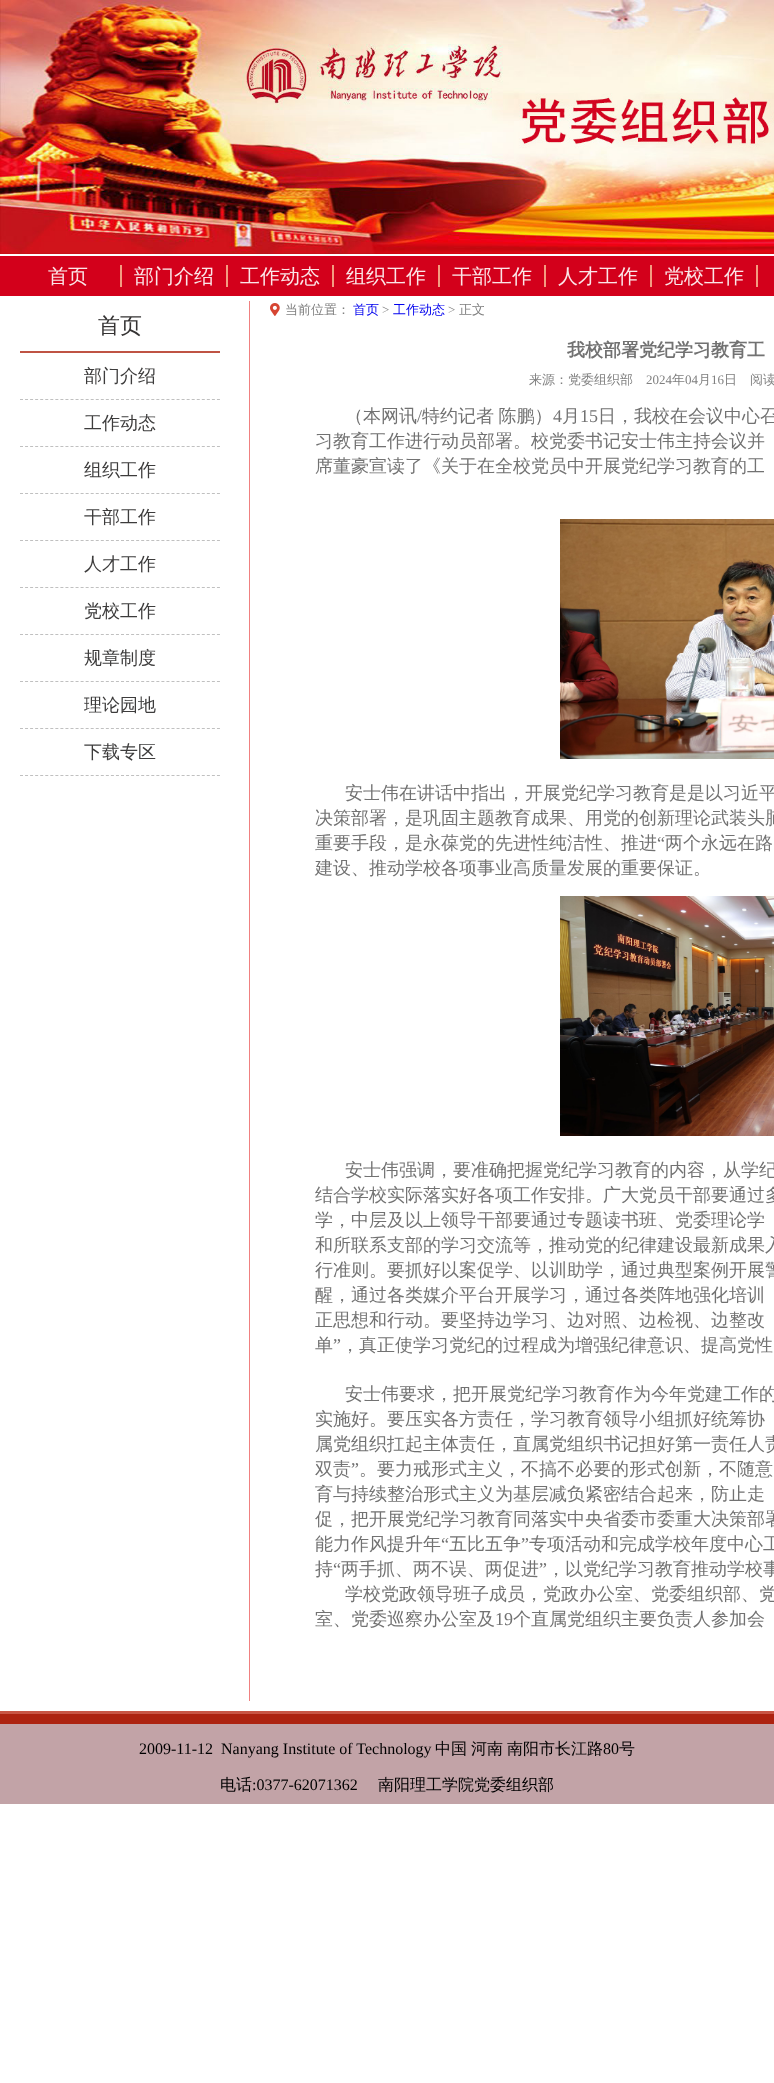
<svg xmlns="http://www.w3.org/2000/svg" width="774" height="2083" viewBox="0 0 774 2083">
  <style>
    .t1 { font: 500 20px WenQuanYi Zen Hei; fill: #fbe6e8; }
    .t2 { font: 500 22px WenQuanYi Zen Hei; fill: #353333; }
    .t3 { font: 500 18px WenQuanYi Zen Hei; fill: #3d3c3c; }
    .t4 { font: 500 13px WenQuanYi Zen Hei; fill: #808080; }
    .t5 { font: 500 13px WenQuanYi Zen Hei; fill: #00e; }
    .t6 { font: 13px Liberation Serif; fill: #808080; }
    .t7 { font: bold 18px WenQuanYi Zen Hei; fill: #727272; }
    .t8 { font: 500 18px WenQuanYi Zen Hei; fill: #727272; }
    .t9 { font: 18px Liberation Serif; fill: #727272; }
    .t10 { font: 16px Liberation Serif; fill: #000; }
    .t11 { font: 500 16px WenQuanYi Zen Hei; fill: #000; }
  </style>
  <rect width="100%" height="100%" fill="#fff"/>
  <image x="0" y="1714" width="774" height="10" href="images/1.png"/>
  <image x="0" y="0" width="774" height="254" href="images/2.png"/>
  <rect x="0" y="256" width="774" height="40" fill="#d3001b"/>
  <rect x="120" y="265" width="2" height="22" fill="#f39c81"/>
  <text x="48" y="283" class="t1">首页</text>
  <rect x="226" y="265" width="2" height="22" fill="#f39c81"/>
  <text x="134" y="283" class="t1">部门介绍</text>
  <rect x="332" y="265" width="2" height="22" fill="#f39c81"/>
  <text x="240" y="283" class="t1">工作动态</text>
  <rect x="438" y="265" width="2" height="22" fill="#f39c81"/>
  <text x="346" y="283" class="t1">组织工作</text>
  <rect x="544" y="265" width="2" height="22" fill="#f39c81"/>
  <text x="452" y="283" class="t1">干部工作</text>
  <rect x="650" y="265" width="2" height="22" fill="#f39c81"/>
  <text x="558" y="283" class="t1">人才工作</text>
  <rect x="756" y="265" width="2" height="22" fill="#f39c81"/>
  <text x="664" y="283" class="t1">党校工作</text>
  <rect x="0" y="1711" width="774" height="3" fill="#c85545"/>
  <rect x="20" y="351" width="200" height="2" fill="#bf5344"/>
  <text x="98" y="333" class="t2">首页</text>
  <path d="M20 399.5H220" fill="none" stroke="#c0c0c0" stroke-dasharray="3 2.05"/>
  <text x="84" y="382" class="t3">部门介绍</text>
  <path d="M20 446.5H220" fill="none" stroke="#c0c0c0" stroke-dasharray="3 2.05"/>
  <text x="84" y="429" class="t3">工作动态</text>
  <path d="M20 493.5H220" fill="none" stroke="#c0c0c0" stroke-dasharray="3 2.05"/>
  <text x="84" y="476" class="t3">组织工作</text>
  <path d="M20 540.5H220" fill="none" stroke="#c0c0c0" stroke-dasharray="3 2.05"/>
  <text x="84" y="523" class="t3">干部工作</text>
  <path d="M20 587.5H220" fill="none" stroke="#c0c0c0" stroke-dasharray="3 2.05"/>
  <text x="84" y="570" class="t3">人才工作</text>
  <path d="M20 634.5H220" fill="none" stroke="#c0c0c0" stroke-dasharray="3 2.05"/>
  <text x="84" y="617" class="t3">党校工作</text>
  <path d="M20 681.5H220" fill="none" stroke="#c0c0c0" stroke-dasharray="3 2.05"/>
  <text x="84" y="664" class="t3">规章制度</text>
  <path d="M20 728.5H220" fill="none" stroke="#c0c0c0" stroke-dasharray="3 2.05"/>
  <text x="84" y="711" class="t3">理论园地</text>
  <path d="M20 775.5H220" fill="none" stroke="#c0c0c0" stroke-dasharray="3 2.05"/>
  <text x="84" y="758" class="t3">下载专区</text>
  <rect x="249" y="301" width="1" height="1400" fill="#f08080"/>
  <image x="270" y="303" width="10" height="13" href="images/3.png"/>
  <text x="285" y="314" class="t4">当前位置：</text>
  <text x="353" y="314" class="t5">首页</text>
  <text x="382" y="314" class="t6">&gt;</text>
  <text x="393" y="314" class="t5">工作动态</text>
  <text x="448" y="314" class="t6">&gt;</text>
  <text x="459" y="314" class="t4">正文</text>
  <text x="567" y="356" class="t7">我校部署党纪学习教育工</text>
  <text x="529" y="384" class="t4">来源：党委组织部</text>
  <text x="646" y="384" class="t6">2024</text>
  <text x="672" y="384" class="t4">年</text>
  <text x="685" y="384" class="t6">04</text>
  <text x="698" y="384" class="t4">月</text>
  <text x="711" y="384" class="t6">16</text>
  <text x="724" y="384" class="t4">日</text>
  <text x="750" y="384" class="t4">阅读</text>
  <text x="345" y="422" class="t8">（本网讯</text>
  <text x="417" y="422" class="t9">/</text>
  <text x="422" y="422" word-spacing="-1" class="t8">特约记者 陈鹏）</text>
  <text x="553" y="422" class="t9">4</text>
  <text x="562" y="422" class="t8">月</text>
  <text x="580" y="422" class="t9">15</text>
  <text x="598" y="422" class="t8">日，我校在会议中心召</text>
  <text x="315" y="447" class="t8">习教育工作进行动员部署。校党委书记安士伟主持会议并</text>
  <text x="315" y="472" class="t8">席董豪宣读了《关于在全校党员中开展党纪学习教育的工</text>
  <image x="560" y="519" width="214" height="240" href="images/4.png"/>
  <text x="345" y="799" class="t8">安士伟在讲话中指出，开展党纪学习教育是是以习近平</text>
  <text x="315" y="824" class="t8">决策部署，是巩固主题教育成果、用党的创新理论武装头脑</text>
  <text x="315" y="849" class="t8">重要手段，是永葆党的先进性纯洁性、推进</text>
  <text x="657" y="849" class="t9">“</text>
  <text x="665" y="849" class="t8">两个永远在路</text>
  <text x="315" y="874" class="t8">建设、推动学校各项事业高质量发展的重要保证。</text>
  <image x="560" y="896" width="214" height="240" href="images/5.png"/>
  <text x="345" y="1176" class="t8">安士伟强调，要准确把握党纪学习教育的内容，从学纪</text>
  <text x="315" y="1201" class="t8">结合学校实际落实好各项工作安排。广大党员干部要通过多</text>
  <text x="315" y="1226" class="t8">学，中层及以上领导干部要通过专题读书班、党委理论学</text>
  <text x="315" y="1251" class="t8">和所联系支部的学习交流等，推动党的纪律建设最新成果入</text>
  <text x="315" y="1276" class="t8">行准则。要抓好以案促学、以训助学，通过典型案例开展警</text>
  <text x="315" y="1301" class="t8">醒，通过各类媒介平台开展学习，通过各类阵地强化培训</text>
  <text x="315" y="1326" class="t8">正思想和行动。要坚持边学习、边对照、边检视、边整改</text>
  <text x="315" y="1351" class="t8">单</text>
  <text x="333" y="1351" class="t9">”</text>
  <text x="341" y="1351" class="t8">，真正使学习党纪的过程成为增强纪律意识、提高党性</text>
  <text x="345" y="1400" class="t8">安士伟要求，把开展党纪学习教育作为今年党建工作的</text>
  <text x="315" y="1425" class="t8">实施好。要压实各方责任，学习教育领导小组抓好统筹协</text>
  <text x="315" y="1450" class="t8">属党组织扛起主体责任，直属党组织书记担好第一责任人责</text>
  <text x="315" y="1475" class="t8">双责</text>
  <text x="351" y="1475" class="t9">”</text>
  <text x="359" y="1475" class="t8">。要力戒形式主义，不搞不必要的形式创新，不随意</text>
  <text x="315" y="1500" class="t8">育与持续整治形式主义为基层减负紧密结合起来，防止走</text>
  <text x="315" y="1525" class="t8">促，把开展党纪学习教育同落实中央省委市委重大决策部署</text>
  <text x="315" y="1550" class="t8">能力作风提升年</text>
  <text x="441" y="1550" class="t9">“</text>
  <text x="449" y="1550" class="t8">五比五争</text>
  <text x="521" y="1550" class="t9">”</text>
  <text x="529" y="1550" class="t8">专项活动和完成学校年度中心工</text>
  <text x="315" y="1575" class="t8">持</text>
  <text x="333" y="1575" class="t9">“</text>
  <text x="341" y="1575" class="t8">两手抓、两不误、两促进</text>
  <text x="539" y="1575" class="t9">”</text>
  <text x="547" y="1575" class="t8">，以党纪学习教育推动学校事</text>
  <text x="345" y="1600" class="t8">学校党政领导班子成员，党政办公室、党委组织部、党</text>
  <text x="315" y="1625" class="t8">室、党委巡察办公室及</text>
  <text x="495" y="1625" class="t9">19</text>
  <text x="513" y="1625" class="t8">个直属党组织主要负责人参加会</text>
  <rect x="0" y="1724" width="774" height="80" fill="#c2a3a7"/>
  <text x="139" y="1754" class="t10" xml:space="preserve">2009-11-12  Nanyang Institute of Technology</text>
  <text x="435" y="1754" class="t11">中国</text>
  <text x="471" y="1754" class="t11">河南</text>
  <text x="507" y="1754" class="t11">南阳市长江路</text>
  <text x="603" y="1754" class="t10">80</text>
  <text x="619" y="1754" class="t11">号</text>
  <text x="220" y="1790" class="t11">电话</text>
  <text x="252" y="1790" class="t10">:0377-62071362</text>
  <text x="378" y="1790" class="t11">南阳理工学院党委组织部</text>
</svg>
